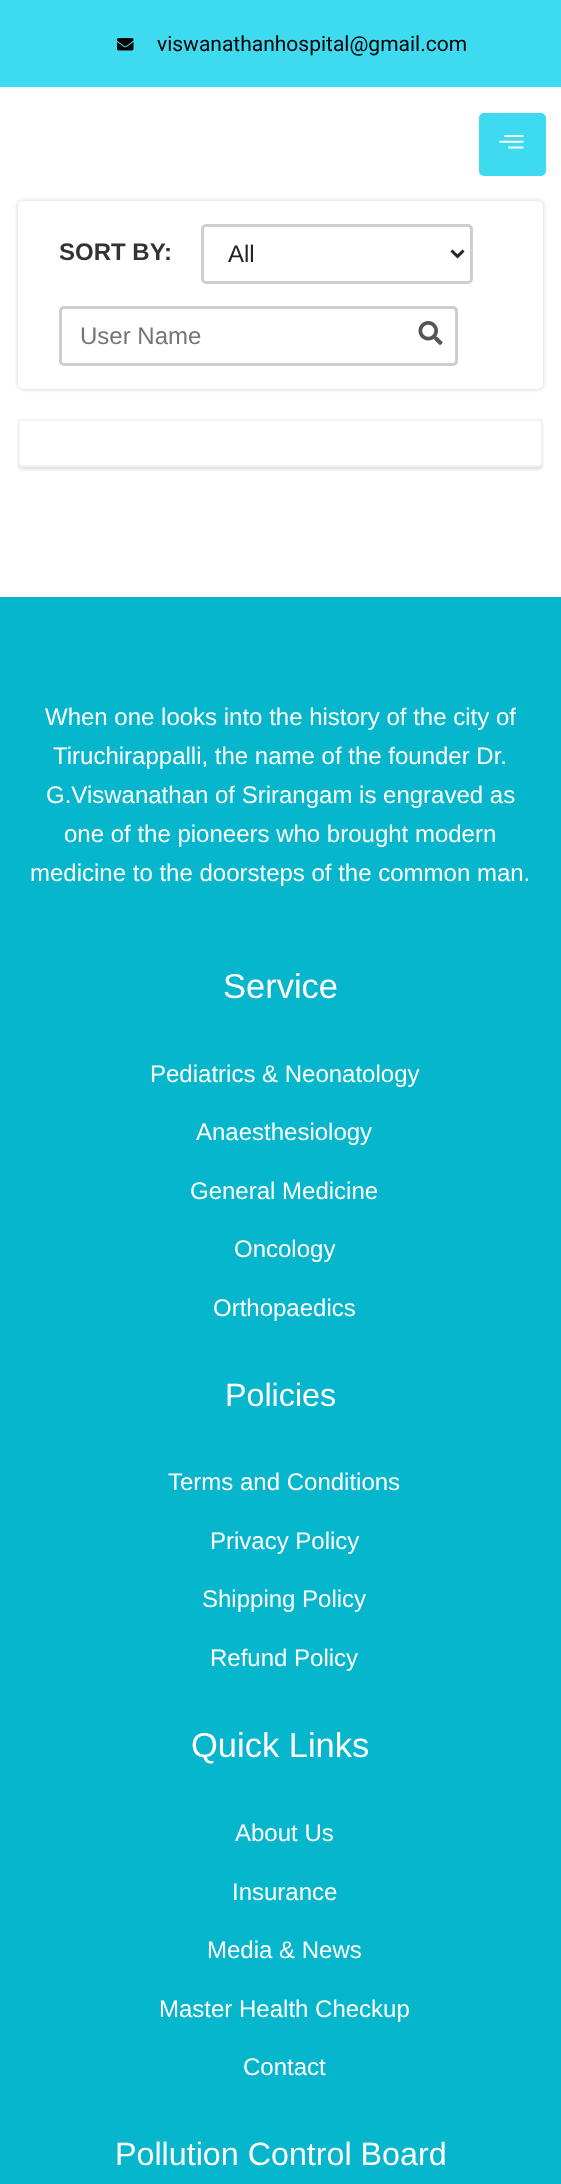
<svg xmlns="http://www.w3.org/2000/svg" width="561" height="2184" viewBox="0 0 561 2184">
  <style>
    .t1 { font: 21px Roboto; fill: #000; }
    .t2 { font: bold 24px Liberation Sans; fill: #333; }
    .t3 { font: 24px Liberation Sans; fill: #212529; }
    .t4 { font: 24px Liberation Sans; fill: #757575; }
    .t5 { font: 24px Liberation Sans; fill: #fff; }
    .t6 { font: 34.5px Liberation Sans; fill: #fff; }
    .t7 { font: 32.25px Liberation Sans; fill: #fff; }
  </style>
  <rect width="100%" height="100%" fill="#fff"/>
  <rect x="0" y="0" width="561" height="87" fill="#3edbf0"/>
  <image x="117" y="38" width="17" height="13" href="images/1.png"/>
  <text x="157" y="51" class="t1">viswanathanhospital@gmail.com</text>
  <rect x="480" y="114" width="65" height="61" rx="4" fill="#3edbf0" stroke="#3edbf0" stroke-width="2"/>
  <image x="499" y="135" width="25" height="14" href="images/2.png"/>
  <rect x="18" y="201" width="525" height="188" rx="5" fill="#00000033" filter="blur(2px)"/>
  <rect x="18" y="201" width="525" height="188" rx="5" fill="#fff"/>
  <text x="59" y="260" class="t2">SORT BY:</text>
  <rect x="202.5" y="225.5" width="269" height="57" rx="3.5" fill="none" stroke="#cecece" stroke-width="3"/>
  <path d="M451.5 250.5L457.5 256.5L463.5 250.5" fill="none" stroke="#212529" stroke-width="3"/>
  <text x="228" y="262" class="t3">All</text>
  <rect x="60.5" y="307.5" width="396" height="57" rx="3.5" fill="none" stroke="#cecece" stroke-width="3"/>
  <text x="80" y="344" class="t4">User Name</text>
  <image x="418" y="321" width="25" height="24" href="images/3.png"/>
  <rect x="18" y="422" width="525" height="48" rx="5" fill="#0000001a" filter="blur(1px)"/>
  <path d="M19 420H542V462C542 464 540 466 538 466H23C21 466 19 464 19 462Z" fill="#fff" stroke="#f3f3f3" stroke-width="2"/>
  <rect x="0" y="597" width="561" height="1587" fill="#06b6cd"/>
  <text x="45" y="725" class="t5">When one looks into the history of the city of</text>
  <text x="53" y="764" class="t5">Tiruchirappalli, the name of the founder Dr.</text>
  <text x="46" y="803" class="t5">G.Viswanathan of Srirangam is engraved as</text>
  <text x="64" y="842" class="t5">one of the pioneers who brought modern</text>
  <text x="30" y="881" class="t5">medicine to the doorsteps of the common man.</text>
  <text x="223" y="998" class="t6">Service</text>
  <text x="150" y="1082" class="t5">Pediatrics &amp; Neonatology</text>
  <text x="196" y="1140" class="t5">Anaesthesiology</text>
  <text x="190" y="1199" class="t5">General Medicine</text>
  <text x="234" y="1257" class="t5">Oncology</text>
  <text x="213" y="1316" class="t5">Orthopaedics</text>
  <text x="225" y="1406" class="t7">Policies</text>
  <text x="168" y="1490" class="t5">Terms and Conditions</text>
  <text x="210" y="1549" class="t5">Privacy Policy</text>
  <text x="202" y="1607" class="t5">Shipping Policy</text>
  <text x="210" y="1666" class="t5">Refund Policy</text>
  <text x="191" y="1757" class="t6">Quick Links</text>
  <text x="235" y="1841" class="t5">About Us</text>
  <text x="232" y="1900" class="t5">Insurance</text>
  <text x="207" y="1958" class="t5">Media &amp; News</text>
  <text x="159" y="2017" class="t5">Master Health Checkup</text>
  <text x="243" y="2075" class="t5">Contact</text>
  <text x="115" y="2165" class="t7">Pollution Control Board</text>
</svg>
